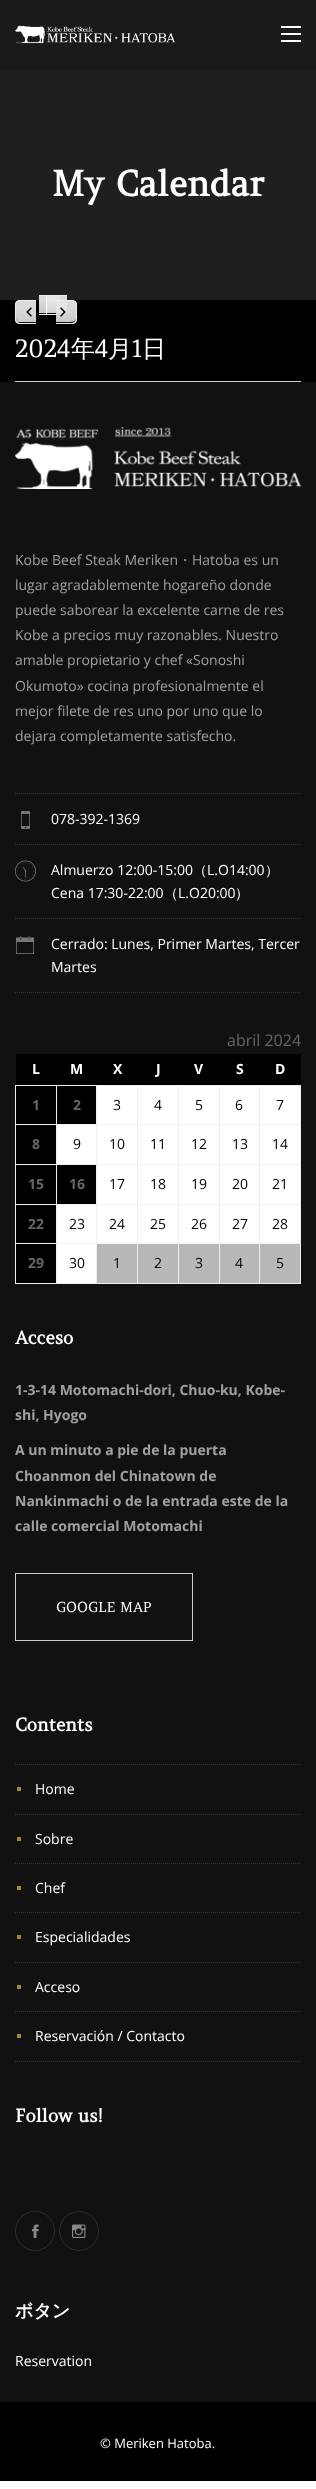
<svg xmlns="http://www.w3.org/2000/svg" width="316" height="2489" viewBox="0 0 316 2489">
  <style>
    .t1 { font: bold 35px Amethysta; fill: #fff; }
    .t2 { font: 24px Amethysta; fill: #fff; }
    .t3 { font: 500 24px WenQuanYi Zen Hei; fill: #fff; }
    .t4 { font: 14px Open Sans; fill: #a0a0a0; }
    .t5 { font: 500 14px WenQuanYi Zen Hei; fill: #a0a0a0; }
    .t6 { font: 14px Open Sans; fill: #fff; }
    .t7 { font: 500 14px WenQuanYi Zen Hei; fill: #fff; }
    .t8 { font: 16px Open Sans; fill: #666; }
    .t9 { font: bold 14px Open Sans; fill: #fff; }
    .t10 { font: bold 14px Open Sans; fill: #666; }
    .t11 { font: 14px Open Sans; fill: #000; }
    .t12 { font: bold 18px Amethysta; fill: #fff; }
    .t13 { font: bold 14px Open Sans; fill: #a0a0a0; }
    .t14 { font: 14px Amethysta; fill: #fff; }
    .t15 { font: bold 18px WenQuanYi Zen Hei; fill: #fff; }
    .t16 { font: 13px Open Sans; fill: #fff; }
  </style>
  <defs>
    <clipPath id="clip1"><path d="M20 300H36V324H20C17 324 15 322 15 319V305C15 302 17 300 20 300Z"/></clipPath>
    <linearGradient id="g1" gradientUnits="userSpaceOnUse" x1="26" y1="323" x2="26" y2="301"><stop offset="0" stop-color="#c8c8c8"/><stop offset="0.7" stop-color="#dbdbdb"/></linearGradient>
    <linearGradient id="g2" gradientUnits="userSpaceOnUse" x1="49" y1="314" x2="49" y2="296"><stop offset="0" stop-color="#d2d2d2" stop-opacity="0.95"/><stop offset="0.7" stop-color="#e6e6e6" stop-opacity="0.95"/></linearGradient>
    <linearGradient id="g3" gradientUnits="userSpaceOnUse" x1="57" y1="314" x2="57" y2="296"><stop offset="0" stop-color="#d2d2d2" stop-opacity="0.95"/><stop offset="0.7" stop-color="#e6e6e6" stop-opacity="0.95"/></linearGradient>
    <clipPath id="clip2"><path d="M56 300H72C75 300 77 302 77 305V319C77 322 75 324 72 324H56Z"/></clipPath>
    <linearGradient id="g4" gradientUnits="userSpaceOnUse" x1="66" y1="323" x2="66" y2="301"><stop offset="0" stop-color="#d2d2d2" stop-opacity="0.95"/><stop offset="0.7" stop-color="#e6e6e6" stop-opacity="0.95"/></linearGradient>
  </defs>
  <rect width="100%" height="100%" fill="#fff"/>
  <rect x="0" y="70" width="316" height="230" fill="#1f1f20"/>
  <rect x="0" y="1" width="316" height="70" fill="#0000001a" filter="blur(4px)"/>
  <rect x="0" y="0" width="316" height="70" fill="#1a1a1b"/>
  <image x="15" y="25" width="160" height="19" href="images/1.png"/>
  <rect x="281" y="33" width="20" height="2" fill="#fff"/>
  <rect x="281" y="26" width="20" height="2" fill="#fff"/>
  <rect x="281" y="40" width="20" height="2" fill="#fff"/>
  <rect x="0" y="300" width="316" height="82" fill="#000"/>
  <text x="52" y="196" class="t1">My Calendar</text>
  <rect x="39" y="295" width="7" height="1" fill="#efefef"/>
  <rect x="59" y="295" width="1" height="20" fill="#bbb"/>
  <g clip-path="url(#clip1)">
    <rect x="15" y="301" width="21" height="22" fill="url(#g1)"/>
  </g>
  <path d="M16.5 303.5L16 305.5ZM16 318C16 324 21 323 25.5 323H36V322H18C17 321 16 320 16 318Z" fill="#0f0f0f" fill-rule="evenodd"/>
  <path d="M20 300H36V324H20C17 324 15 322 15 319V305C15 302 17 300 20 300ZM20 301H36V323H20C18 323 16 321 16 319V305C16 303 18 301 20 301Z" fill="#efefef" fill-rule="evenodd"/>
  <rect x="39" y="296" width="20" height="17" fill="url(#g2)"/>
  <image x="26" y="307" width="6" height="10" href="images/2.png"/>
  <rect x="39" y="313" width="7" height="1" fill="#0f0f0f"/>
  <rect x="39" y="314" width="28" height="1" fill="#efefef"/>
  <rect x="46" y="295" width="21" height="1" fill="#efefef"/>
  <rect x="46" y="295" width="1" height="20" fill="#fff"/>
  <rect x="47" y="296" width="20" height="17" fill="url(#g3)"/>
  <rect x="47" y="313" width="20" height="1" fill="#0f0f0f"/>
  <g clip-path="url(#clip2)">
    <rect x="56" y="301" width="21" height="22" fill="url(#g4)"/>
  </g>
  <path d="M56 322V323H66.5C70.5 323 76 324 76 318.5C75.5 321 74 322 69 322Z" fill="#0f0f0f"/>
  <path d="M56 300H72C75 300 77 302 77 305V319C77 322 75 324 72 324H56ZM56 301H72C74 301 76 303 76 305V319C76 321 74 323 72 323H56Z" fill="#efefef" fill-rule="evenodd"/>
  <image x="60" y="307" width="6" height="10" href="images/3.png"/>
  <text x="15" y="357" class="t2">2024</text>
  <text x="71" y="357" class="t3">年</text>
  <text x="95" y="357" class="t2">4</text>
  <text x="108" y="357" class="t3">月</text>
  <text x="132" y="357" class="t2">1</text>
  <text x="142" y="357" class="t3">日</text>
  <rect x="15" y="381" width="286" height="1" fill="#d1d1d1"/>
  <rect x="0" y="382" width="316" height="2020" fill="#111"/>
  <image x="15" y="427" width="286" height="62" href="images/4.png"/>
  <text x="15" y="565" class="t4">Kobe Beef Steak Meriken</text>
  <text x="178" y="565" class="t5">・</text>
  <text x="192" y="565" class="t4">Hatoba es un</text>
  <text x="15" y="590" class="t4">lugar agradablemente hogareño donde</text>
  <text x="15" y="615" class="t4">puede saborear la excelente carne de res</text>
  <text x="15" y="640" class="t4">Kobe a precios muy razonables. Nuestro</text>
  <text x="15" y="665" class="t4">amable propietario y chef «Sonoshi</text>
  <text x="15" y="691" class="t4">Okumoto» cocina profesionalmente el</text>
  <text x="15" y="716" class="t4">mejor filete de res uno por uno que lo</text>
  <text x="15" y="741" class="t4">dejara completamente satisfecho.</text>
  <path d="M15 793.5H301" fill="none" stroke="#353535" stroke-dasharray="1 1"/>
  <path d="M15 844.5H301" fill="none" stroke="#353535" stroke-dasharray="1 1"/>
  <image x="21" y="811" width="9" height="18" href="images/5.png"/>
  <text x="51" y="824" class="t6">078-392-1369</text>
  <path d="M15 918.5H301" fill="none" stroke="#353535" stroke-dasharray="1 1"/>
  <image x="15" y="860" width="21" height="22" href="images/6.png"/>
  <text x="51" y="875" class="t6">Almuerzo 12:00-15:00</text>
  <text x="193" y="875" class="t7">（</text>
  <text x="207" y="875" class="t6">L.O14:00</text>
  <text x="265" y="875" class="t7">）</text>
  <text x="51" y="898" class="t6">Cena 17:30-22:00</text>
  <text x="164" y="898" class="t7">（</text>
  <text x="178" y="898" class="t6">L.O20:00</text>
  <text x="235" y="898" class="t7">）</text>
  <path d="M15 992.5H301" fill="none" stroke="#353535" stroke-dasharray="1 1"/>
  <image x="16" y="936" width="18" height="18" href="images/7.png"/>
  <text x="51" y="949" class="t6">Cerrado: Lunes, Primer Martes, Tercer</text>
  <text x="51" y="972" class="t6">Martes</text>
  <text x="227" y="1046" class="t8">abril 2024</text>
  <rect x="16" y="1054" width="285" height="31" fill="#000"/>
  <text x="32" y="1074" class="t9">L</text>
  <text x="70" y="1074" class="t9">M</text>
  <text x="113" y="1074" class="t9">X</text>
  <text x="156" y="1074" class="t9">J</text>
  <text x="194" y="1074" class="t9">V</text>
  <text x="236" y="1074" class="t9">S</text>
  <text x="275" y="1074" class="t9">D</text>
  <rect x="259" y="1085" width="42" height="1" fill="#efefef"/>
  <rect x="259" y="1124" width="42" height="1" fill="#efefef"/>
  <rect x="259" y="1164" width="42" height="1" fill="#efefef"/>
  <rect x="259" y="1204" width="42" height="1" fill="#efefef"/>
  <rect x="259" y="1243" width="42" height="1" fill="#efefef"/>
  <rect x="300" y="1243" width="1" height="41" fill="#efefef"/>
  <rect x="259" y="1283" width="42" height="1" fill="#efefef"/>
  <rect x="259" y="1243" width="1" height="41" fill="#efefef"/>
  <rect x="219" y="1243" width="41" height="1" fill="#efefef"/>
  <rect x="259" y="1204" width="1" height="40" fill="#efefef"/>
  <rect x="219" y="1204" width="41" height="1" fill="#efefef"/>
  <rect x="259" y="1164" width="1" height="41" fill="#efefef"/>
  <rect x="219" y="1164" width="41" height="1" fill="#efefef"/>
  <rect x="259" y="1124" width="1" height="41" fill="#efefef"/>
  <rect x="219" y="1124" width="41" height="1" fill="#efefef"/>
  <rect x="259" y="1085" width="1" height="40" fill="#efefef"/>
  <rect x="219" y="1085" width="41" height="1" fill="#efefef"/>
  <rect x="219" y="1283" width="41" height="1" fill="#efefef"/>
  <rect x="219" y="1243" width="1" height="41" fill="#efefef"/>
  <rect x="178" y="1243" width="42" height="1" fill="#efefef"/>
  <rect x="219" y="1204" width="1" height="40" fill="#efefef"/>
  <rect x="178" y="1204" width="42" height="1" fill="#efefef"/>
  <rect x="219" y="1164" width="1" height="41" fill="#efefef"/>
  <rect x="178" y="1164" width="42" height="1" fill="#efefef"/>
  <rect x="219" y="1124" width="1" height="41" fill="#efefef"/>
  <rect x="178" y="1124" width="42" height="1" fill="#efefef"/>
  <rect x="219" y="1085" width="1" height="40" fill="#efefef"/>
  <rect x="178" y="1085" width="42" height="1" fill="#efefef"/>
  <rect x="178" y="1283" width="42" height="1" fill="#efefef"/>
  <rect x="178" y="1243" width="1" height="41" fill="#efefef"/>
  <rect x="137" y="1243" width="42" height="1" fill="#efefef"/>
  <rect x="178" y="1204" width="1" height="40" fill="#efefef"/>
  <rect x="137" y="1204" width="42" height="1" fill="#efefef"/>
  <rect x="178" y="1164" width="1" height="41" fill="#efefef"/>
  <rect x="137" y="1164" width="42" height="1" fill="#efefef"/>
  <rect x="178" y="1124" width="1" height="41" fill="#efefef"/>
  <rect x="137" y="1124" width="42" height="1" fill="#efefef"/>
  <rect x="178" y="1085" width="1" height="40" fill="#efefef"/>
  <rect x="137" y="1085" width="42" height="1" fill="#efefef"/>
  <rect x="137" y="1283" width="42" height="1" fill="#efefef"/>
  <rect x="137" y="1243" width="1" height="41" fill="#efefef"/>
  <rect x="96" y="1243" width="42" height="1" fill="#efefef"/>
  <rect x="137" y="1204" width="1" height="40" fill="#efefef"/>
  <rect x="96" y="1204" width="42" height="1" fill="#efefef"/>
  <rect x="137" y="1164" width="1" height="41" fill="#efefef"/>
  <rect x="96" y="1164" width="42" height="1" fill="#efefef"/>
  <rect x="137" y="1124" width="1" height="41" fill="#efefef"/>
  <rect x="96" y="1124" width="42" height="1" fill="#efefef"/>
  <rect x="137" y="1085" width="1" height="40" fill="#efefef"/>
  <rect x="96" y="1085" width="42" height="1" fill="#efefef"/>
  <rect x="96" y="1283" width="42" height="1" fill="#efefef"/>
  <rect x="96" y="1243" width="1" height="41" fill="#efefef"/>
  <rect x="56" y="1243" width="41" height="1" fill="#efefef"/>
  <rect x="96" y="1204" width="1" height="40" fill="#efefef"/>
  <rect x="56" y="1204" width="41" height="1" fill="#efefef"/>
  <rect x="96" y="1164" width="1" height="41" fill="#efefef"/>
  <rect x="56" y="1164" width="41" height="1" fill="#efefef"/>
  <rect x="96" y="1124" width="1" height="41" fill="#efefef"/>
  <rect x="56" y="1124" width="41" height="1" fill="#efefef"/>
  <rect x="96" y="1085" width="1" height="40" fill="#efefef"/>
  <rect x="56" y="1085" width="41" height="1" fill="#efefef"/>
  <rect x="56" y="1283" width="41" height="1" fill="#efefef"/>
  <rect x="56" y="1243" width="1" height="41" fill="#efefef"/>
  <rect x="15" y="1243" width="42" height="1" fill="#efefef"/>
  <rect x="56" y="1204" width="1" height="40" fill="#efefef"/>
  <rect x="15" y="1204" width="42" height="1" fill="#efefef"/>
  <rect x="56" y="1164" width="1" height="41" fill="#efefef"/>
  <rect x="15" y="1164" width="42" height="1" fill="#efefef"/>
  <rect x="56" y="1124" width="1" height="41" fill="#efefef"/>
  <rect x="15" y="1124" width="42" height="1" fill="#efefef"/>
  <rect x="56" y="1085" width="1" height="40" fill="#efefef"/>
  <rect x="15" y="1085" width="42" height="1" fill="#efefef"/>
  <rect x="15" y="1283" width="42" height="1" fill="#efefef"/>
  <rect x="15" y="1243" width="1" height="41" fill="#efefef"/>
  <rect x="15" y="1204" width="1" height="40" fill="#efefef"/>
  <rect x="15" y="1164" width="1" height="41" fill="#efefef"/>
  <rect x="15" y="1124" width="1" height="41" fill="#efefef"/>
  <rect x="15" y="1085" width="1" height="40" fill="#efefef"/>
  <rect x="16" y="1086" width="40" height="38" fill="#000"/>
  <text x="32" y="1110" class="t10">1</text>
  <rect x="57" y="1086" width="39" height="38" fill="#000"/>
  <text x="73" y="1110" class="t10">2</text>
  <rect x="97" y="1086" width="40" height="38" fill="#fff"/>
  <text x="113" y="1110" class="t11">3</text>
  <rect x="138" y="1086" width="40" height="38" fill="#fff"/>
  <text x="154" y="1110" class="t11">4</text>
  <rect x="179" y="1086" width="40" height="38" fill="#fff"/>
  <text x="195" y="1110" class="t11">5</text>
  <rect x="220" y="1086" width="39" height="38" fill="#fff"/>
  <text x="235" y="1110" class="t11">6</text>
  <rect x="300" y="1204" width="1" height="40" fill="#efefef"/>
  <rect x="300" y="1164" width="1" height="41" fill="#efefef"/>
  <rect x="300" y="1124" width="1" height="41" fill="#efefef"/>
  <rect x="300" y="1085" width="1" height="40" fill="#efefef"/>
  <rect x="260" y="1086" width="40" height="38" fill="#fff"/>
  <text x="276" y="1110" class="t11">7</text>
  <rect x="16" y="1125" width="40" height="39" fill="#000"/>
  <text x="32" y="1149" class="t10">8</text>
  <rect x="57" y="1125" width="39" height="39" fill="#fff"/>
  <text x="73" y="1149" class="t11">9</text>
  <rect x="97" y="1125" width="40" height="39" fill="#fff"/>
  <text x="109" y="1149" class="t11">10</text>
  <rect x="138" y="1125" width="40" height="39" fill="#fff"/>
  <text x="150" y="1149" class="t11">11</text>
  <rect x="179" y="1125" width="40" height="39" fill="#fff"/>
  <text x="191" y="1149" class="t11">12</text>
  <rect x="220" y="1125" width="39" height="39" fill="#fff"/>
  <text x="232" y="1149" class="t11">13</text>
  <rect x="260" y="1125" width="40" height="39" fill="#fff"/>
  <text x="272" y="1149" class="t11">14</text>
  <rect x="16" y="1165" width="40" height="39" fill="#000"/>
  <text x="28" y="1189" class="t10">15</text>
  <rect x="57" y="1165" width="39" height="39" fill="#000"/>
  <text x="69" y="1189" class="t10">16</text>
  <rect x="97" y="1165" width="40" height="39" fill="#fff"/>
  <text x="109" y="1189" class="t11">17</text>
  <rect x="138" y="1165" width="40" height="39" fill="#fff"/>
  <text x="150" y="1189" class="t11">18</text>
  <rect x="179" y="1165" width="40" height="39" fill="#fff"/>
  <text x="191" y="1189" class="t11">19</text>
  <rect x="220" y="1165" width="39" height="39" fill="#fff"/>
  <text x="232" y="1189" class="t11">20</text>
  <rect x="260" y="1165" width="40" height="39" fill="#fff"/>
  <text x="272" y="1189" class="t11">21</text>
  <rect x="16" y="1205" width="40" height="38" fill="#000"/>
  <text x="28" y="1229" class="t10">22</text>
  <rect x="57" y="1205" width="39" height="38" fill="#fff"/>
  <text x="69" y="1229" class="t11">23</text>
  <rect x="97" y="1205" width="40" height="38" fill="#fff"/>
  <text x="109" y="1229" class="t11">24</text>
  <rect x="138" y="1205" width="40" height="38" fill="#fff"/>
  <text x="150" y="1229" class="t11">25</text>
  <rect x="179" y="1205" width="40" height="38" fill="#fff"/>
  <text x="191" y="1229" class="t11">26</text>
  <rect x="220" y="1205" width="39" height="38" fill="#fff"/>
  <text x="232" y="1229" class="t11">27</text>
  <rect x="260" y="1205" width="40" height="38" fill="#fff"/>
  <text x="272" y="1229" class="t11">28</text>
  <rect x="16" y="1244" width="40" height="39" fill="#000"/>
  <text x="28" y="1268" class="t10">29</text>
  <rect x="57" y="1244" width="39" height="39" fill="#fff"/>
  <text x="69" y="1268" class="t11">30</text>
  <rect x="97" y="1244" width="40" height="39" fill="#b8b8b8"/>
  <text x="113" y="1268" class="t11">1</text>
  <rect x="138" y="1244" width="40" height="39" fill="#b8b8b8"/>
  <text x="154" y="1268" class="t11">2</text>
  <rect x="179" y="1244" width="40" height="39" fill="#b8b8b8"/>
  <text x="195" y="1268" class="t11">3</text>
  <rect x="220" y="1244" width="39" height="39" fill="#b8b8b8"/>
  <text x="235" y="1268" class="t11">4</text>
  <rect x="260" y="1244" width="40" height="39" fill="#b8b8b8"/>
  <text x="276" y="1268" class="t11">5</text>
  <text x="15" y="1344" class="t12">Acceso</text>
  <text x="15" y="1395" class="t13">1-3-14 Motomachi-dori, Chuo-ku, Kobe-</text>
  <text x="15" y="1420" class="t13">shi, Hyogo</text>
  <text x="15" y="1455" class="t13">A un minuto a pie de la puerta</text>
  <text x="15" y="1481" class="t13">Choanmon del Chinatown de</text>
  <text x="15" y="1506" class="t13">Nankinmachi o de la entrada este de la</text>
  <text x="15" y="1531" class="t13">calle comercial Motomachi</text>
  <rect x="15.5" y="1573.5" width="177" height="67" fill="none" stroke="#ccc"/>
  <text x="56" y="1612" class="t14">GOOGLE MAP</text>
  <text x="15" y="1731" class="t12">Contents</text>
  <path d="M15 1764.5H301" fill="none" stroke="#353535" stroke-dasharray="1 1"/>
  <path d="M15 1814.5H301" fill="none" stroke="#353535" stroke-dasharray="1 1"/>
  <rect x="17" y="1787" width="4" height="4" fill="#a6892b"/>
  <text x="35" y="1794" class="t6">Home</text>
  <path d="M15 1863.5H301" fill="none" stroke="#353535" stroke-dasharray="1 1"/>
  <rect x="17" y="1837" width="4" height="4" fill="#a6892b"/>
  <text x="35" y="1844" class="t6">Sobre</text>
  <path d="M15 1912.5H301" fill="none" stroke="#353535" stroke-dasharray="1 1"/>
  <rect x="17" y="1886" width="4" height="4" fill="#a6892b"/>
  <text x="35" y="1893" class="t6">Chef</text>
  <path d="M15 1962.5H301" fill="none" stroke="#353535" stroke-dasharray="1 1"/>
  <rect x="17" y="1935" width="4" height="4" fill="#a6892b"/>
  <text x="35" y="1942" class="t6">Especialidades</text>
  <path d="M15 2011.5H301" fill="none" stroke="#353535" stroke-dasharray="1 1"/>
  <rect x="17" y="1985" width="4" height="4" fill="#a6892b"/>
  <text x="35" y="1992" class="t6">Acceso</text>
  <path d="M15 2061.5H301" fill="none" stroke="#353535" stroke-dasharray="1 1"/>
  <rect x="17" y="2034" width="4" height="4" fill="#a6892b"/>
  <text x="35" y="2041" class="t6">Reservación / Contacto</text>
  <text x="15" y="2122" class="t12">Follow us!</text>
  <circle cx="35" cy="2231" r="19.5" fill="none" stroke="#2e2e2e"/>
  <image x="32" y="2224" width="7" height="14" href="images/8.png"/>
  <circle cx="79" cy="2231" r="19.5" fill="none" stroke="#2e2e2e"/>
  <image x="72" y="2224" width="14" height="14" href="images/9.png"/>
  <text x="15" y="2317" class="t15">ボタン</text>
  <text x="15" y="2366" class="t6">Reservation</text>
  <rect x="0" y="2402" width="316" height="79" fill="#000"/>
  <text x="100" y="2448" class="t16">© Meriken Hatoba.</text>
</svg>
